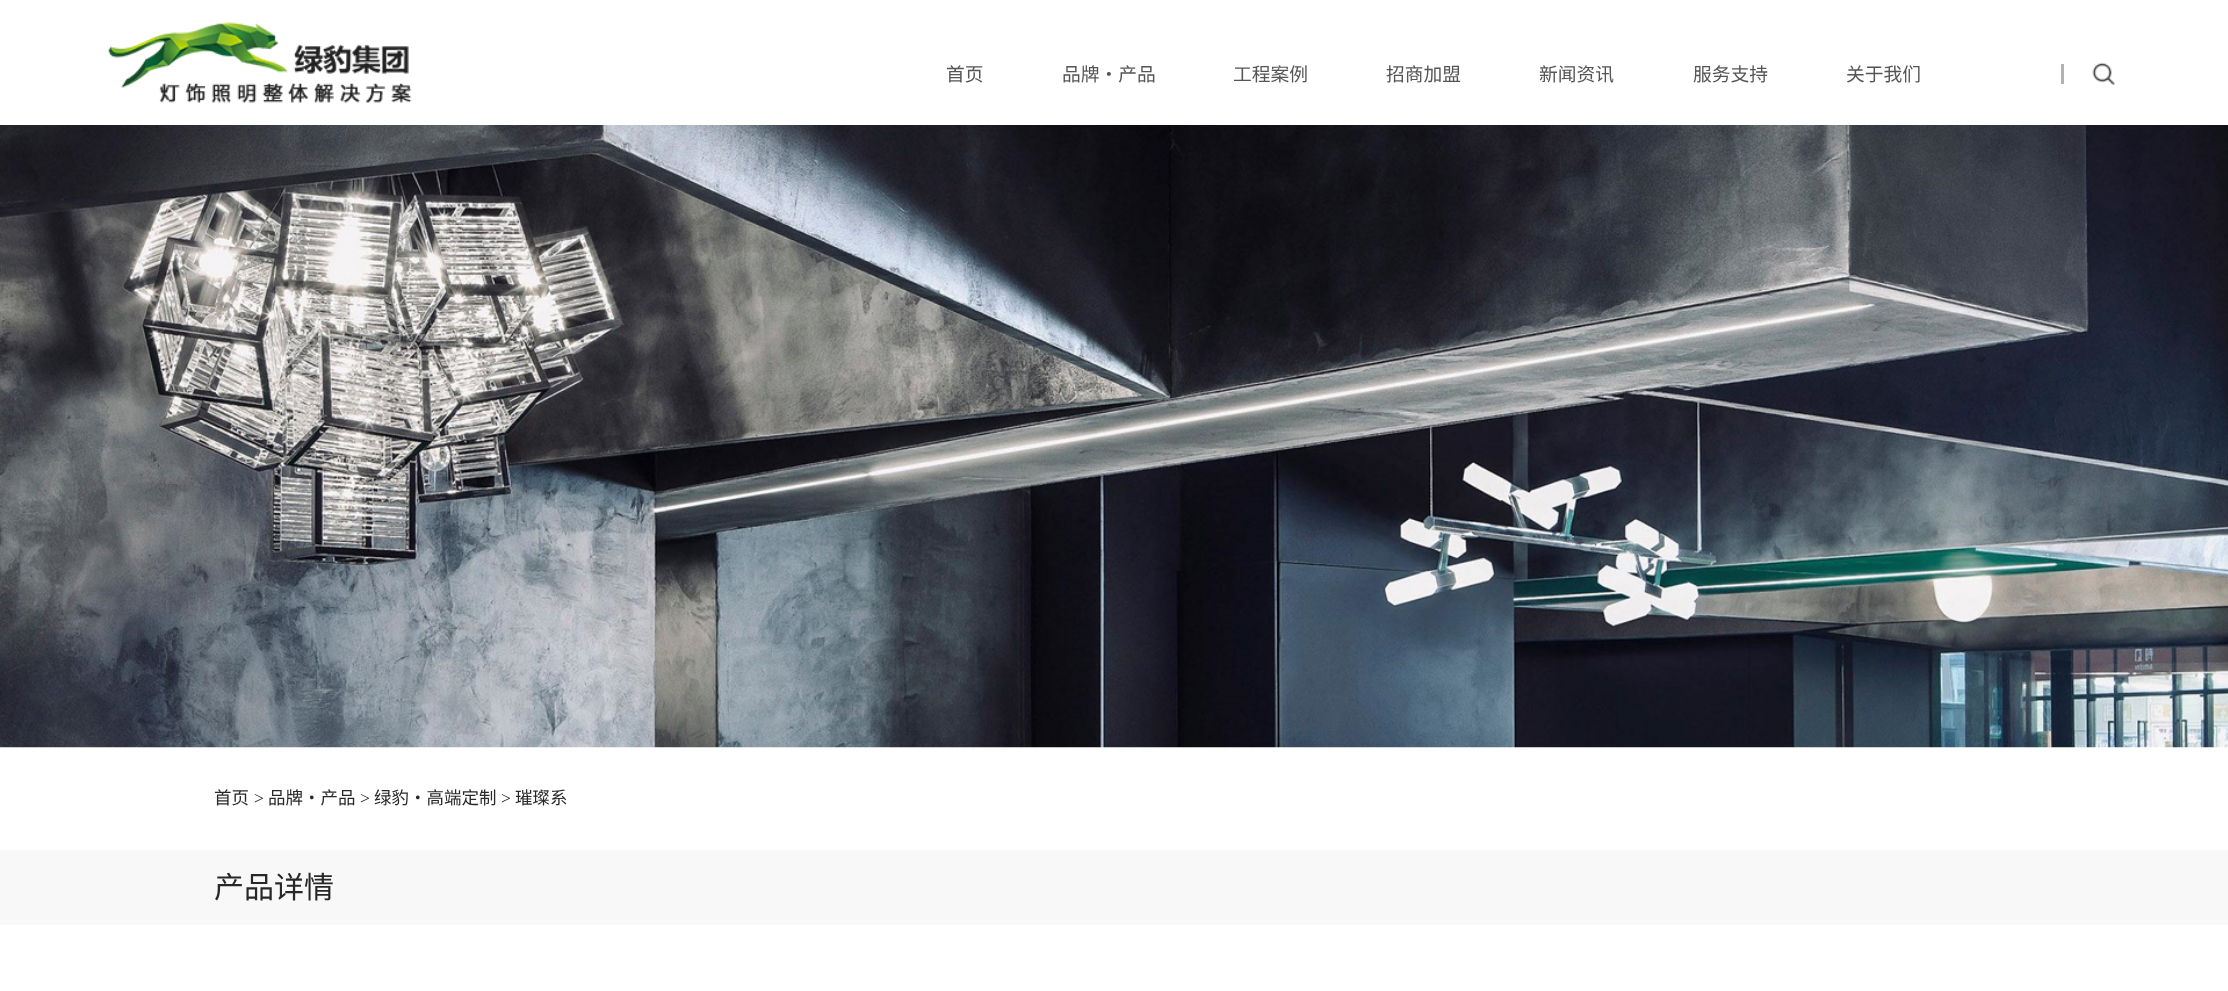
<svg xmlns="http://www.w3.org/2000/svg" width="2228" height="991" viewBox="0 0 2228 991">
  <style>
    .t1 { font: 18.75px Noto Sans CJK SC; fill: #555; }
    .t2 { font: 17.5px Noto Sans CJK SC; fill: #282828; }
    .t3 { font: 17.5px Liberation Serif; fill: #282828; }
    .t4 { font: 30px Noto Sans CJK SC; fill: #282828; }
  </style>
  <rect width="100%" height="100%" fill="#fff"/>
  <image x="108" y="22" width="304" height="81" href="images/1.png"/>
  <text x="946" y="81" class="t1">首页</text>
  <text x="1062" y="81" class="t1">品牌・产品</text>
  <text x="1233" y="81" class="t1">工程案例</text>
  <text x="1386" y="81" class="t1">招商加盟</text>
  <text x="1539" y="81" class="t1">新闻资讯</text>
  <text x="1693" y="81" class="t1">服务支持</text>
  <text x="1846" y="81" class="t1">关于我们</text>
  <rect x="2061" y="64" width="3" height="20" fill="#b2b2b2"/>
  <image x="2092" y="62" width="23" height="23" href="images/2.png"/>
  <image x="0" y="125" width="2228" height="623" href="images/3.png"/>
  <text x="214" y="804" class="t2">首页</text>
  <text x="254" y="804" class="t3">&gt;</text>
  <text x="268" y="804" class="t2">品牌・产品</text>
  <text x="360" y="804" class="t3">&gt;</text>
  <text x="374" y="804" class="t2">绿豹・高端定制</text>
  <text x="501" y="804" class="t3">&gt;</text>
  <text x="515" y="804" class="t2">璀璨系</text>
  <rect x="0" y="850" width="2228" height="75" fill="#f8f8f8"/>
  <text x="214" y="898" class="t4">产品详情</text>
</svg>
